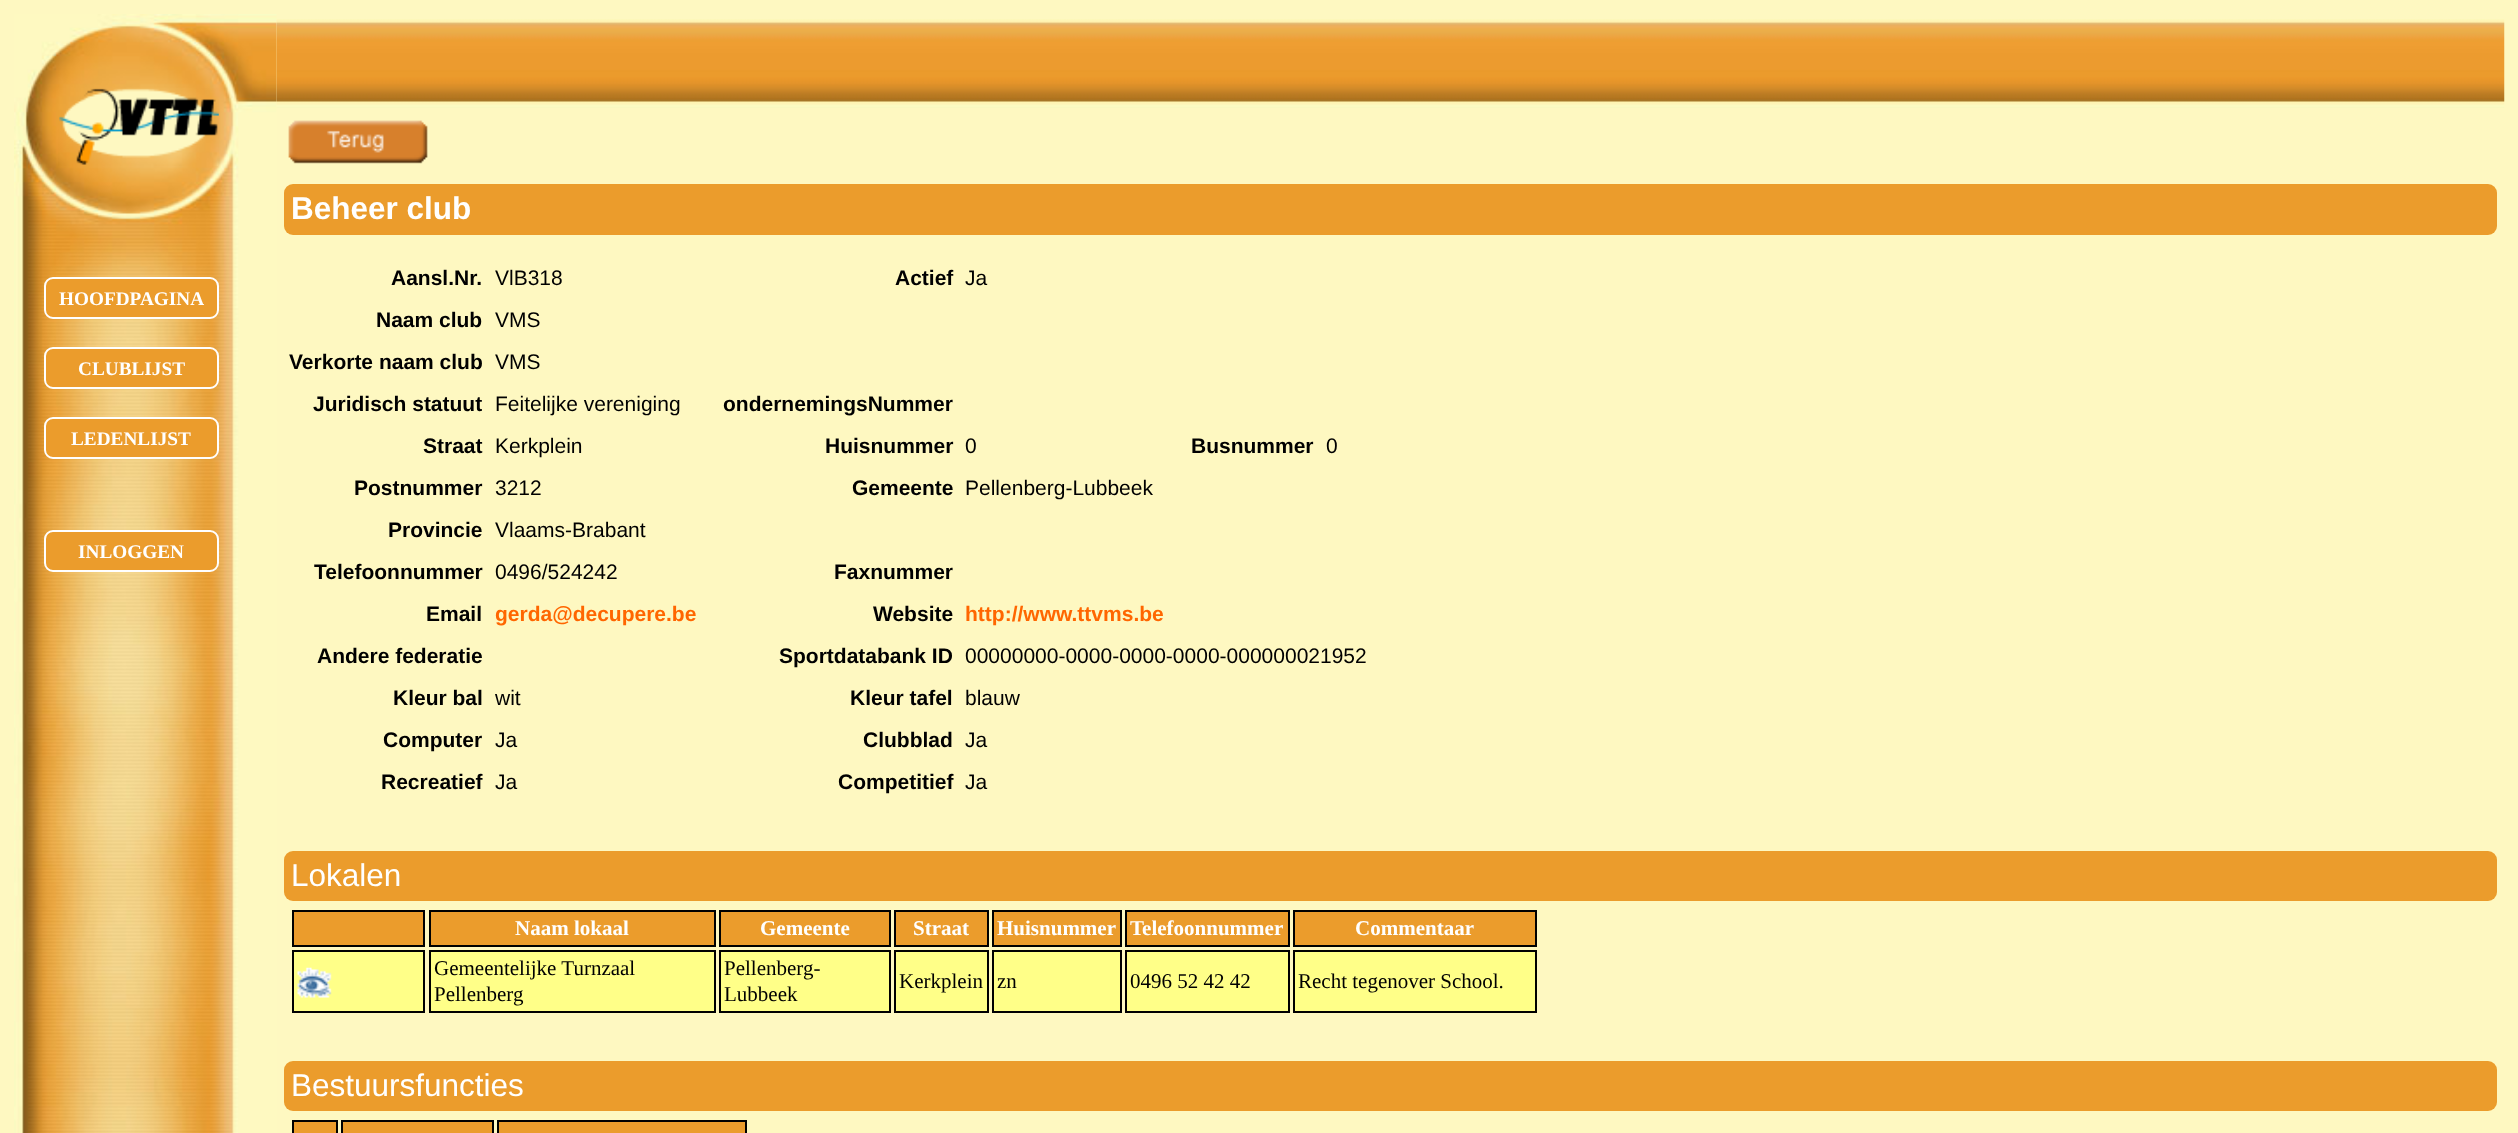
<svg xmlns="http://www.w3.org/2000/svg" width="2518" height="1133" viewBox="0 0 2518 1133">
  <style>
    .t1 { font: bold 19.25px Liberation Serif; fill: #fff; }
    .t2 { font: bold 31.5px Liberation Sans; fill: #fff; }
    .t3 { font: bold 21px Liberation Sans; fill: #000; }
    .t4 { font: 21px Liberation Sans; fill: #000; }
    .t5 { font: bold 21px Liberation Sans; fill: #f60; }
    .t6 { font: 31.5px Liberation Sans; fill: #fff; }
    .t7 { font: bold 21px Liberation Serif; fill: #fff; }
    .t8 { font: 21px Liberation Serif; fill: #000; }
  </style>
  <rect width="100%" height="100%" fill="#fef8c1"/>
  <image x="14" y="14" width="263" height="1119" href="images/1.png"/>
  <image x="58" y="88" width="161" height="78" href="images/2.png"/>
  <rect x="45" y="278" width="173" height="40" rx="8" fill="#eb9c2c" stroke="#fff" stroke-width="2"/>
  <text x="59" y="305" class="t1">HOOFDPAGINA</text>
  <rect x="45" y="348" width="173" height="40" rx="8" fill="#eb9c2c" stroke="#fff" stroke-width="2"/>
  <text x="78" y="375" class="t1">CLUBLIJST</text>
  <rect x="45" y="418" width="173" height="40" rx="8" fill="#eb9c2c" stroke="#fff" stroke-width="2"/>
  <text x="71" y="445" class="t1">LEDENLIJST</text>
  <rect x="45" y="531" width="173" height="40" rx="8" fill="#eb9c2c" stroke="#fff" stroke-width="2"/>
  <text x="78" y="558" class="t1">INLOGGEN</text>
  <image x="276" y="19" width="2229" height="89" href="images/3.png"/>
  <image x="288" y="120" width="140" height="44" href="images/4.png"/>
  <rect x="284" y="184" width="2213" height="51" rx="9" fill="#eb9c2c"/>
  <text x="291" y="219" class="t2">Beheer club</text>
  <text x="391" y="285" class="t3">Aansl.Nr.</text>
  <text x="495" y="285" class="t4">VlB318</text>
  <text x="895" y="285" class="t3">Actief</text>
  <text x="965" y="285" class="t4">Ja</text>
  <text x="376" y="327" class="t3">Naam club</text>
  <text x="495" y="327" class="t4">VMS</text>
  <text x="289" y="369" class="t3">Verkorte naam club</text>
  <text x="495" y="369" class="t4">VMS</text>
  <text x="313" y="411" class="t3">Juridisch statuut</text>
  <text x="495" y="411" class="t4">Feitelijke vereniging</text>
  <text x="723" y="411" class="t3">ondernemingsNummer</text>
  <text x="423" y="453" class="t3">Straat</text>
  <text x="495" y="453" class="t4">Kerkplein</text>
  <text x="825" y="453" class="t3">Huisnummer</text>
  <text x="965" y="453" class="t4">0</text>
  <text x="1191" y="453" class="t3">Busnummer</text>
  <text x="1326" y="453" class="t4">0</text>
  <text x="354" y="495" class="t3">Postnummer</text>
  <text x="495" y="495" class="t4">3212</text>
  <text x="852" y="495" class="t3">Gemeente</text>
  <text x="965" y="495" class="t4">Pellenberg-Lubbeek</text>
  <text x="388" y="537" class="t3">Provincie</text>
  <text x="495" y="537" class="t4">Vlaams-Brabant</text>
  <text x="314" y="579" class="t3">Telefoonnummer</text>
  <text x="495" y="579" class="t4">0496/524242</text>
  <text x="834" y="579" class="t3">Faxnummer</text>
  <text x="426" y="621" class="t3">Email</text>
  <text x="495" y="621" class="t5">gerda@decupere.be</text>
  <text x="873" y="621" class="t3">Website</text>
  <text x="965" y="621" class="t5">http://www.ttvms.be</text>
  <text x="317" y="663" class="t3">Andere federatie</text>
  <text x="779" y="663" class="t3">Sportdatabank ID</text>
  <text x="965" y="663" class="t4">00000000-0000-0000-0000-000000021952</text>
  <text x="393" y="705" class="t3">Kleur bal</text>
  <text x="495" y="705" class="t4">wit</text>
  <text x="850" y="705" class="t3">Kleur tafel</text>
  <text x="965" y="705" class="t4">blauw</text>
  <text x="383" y="747" class="t3">Computer</text>
  <text x="495" y="747" class="t4">Ja</text>
  <text x="863" y="747" class="t3">Clubblad</text>
  <text x="965" y="747" class="t4">Ja</text>
  <text x="381" y="789" class="t3">Recreatief</text>
  <text x="495" y="789" class="t4">Ja</text>
  <text x="838" y="789" class="t3">Competitief</text>
  <text x="965" y="789" class="t4">Ja</text>
  <rect x="284" y="851" width="2213" height="50" rx="9" fill="#eb9c2c"/>
  <text x="291" y="886" class="t6">Lokalen</text>
  <rect x="293" y="911" width="131" height="35" fill="#eb9c2c" stroke="#000" stroke-width="2"/>
  <rect x="430" y="911" width="285" height="35" fill="#eb9c2c" stroke="#000" stroke-width="2"/>
  <text x="515" y="935" class="t7">Naam lokaal</text>
  <rect x="720" y="911" width="170" height="35" fill="#eb9c2c" stroke="#000" stroke-width="2"/>
  <text x="760" y="935" class="t7">Gemeente</text>
  <rect x="895" y="911" width="93" height="35" fill="#eb9c2c" stroke="#000" stroke-width="2"/>
  <text x="913" y="935" class="t7">Straat</text>
  <rect x="993" y="911" width="128" height="35" fill="#eb9c2c" stroke="#000" stroke-width="2"/>
  <text x="997" y="935" class="t7">Huisnummer</text>
  <rect x="1126" y="911" width="163" height="35" fill="#eb9c2c" stroke="#000" stroke-width="2"/>
  <text x="1130" y="935" class="t7">Telefoonnummer</text>
  <rect x="1294" y="911" width="242" height="35" fill="#eb9c2c" stroke="#000" stroke-width="2"/>
  <text x="1355" y="935" class="t7">Commentaar</text>
  <rect x="293" y="951" width="131" height="61" fill="#ff8" stroke="#000" stroke-width="2"/>
  <image x="297" y="967" width="35" height="31" href="images/5.png"/>
  <rect x="430" y="951" width="285" height="61" fill="#ff8" stroke="#000" stroke-width="2"/>
  <text x="434" y="975" class="t8">Gemeentelijke Turnzaal</text>
  <text x="434" y="1001" class="t8">Pellenberg</text>
  <rect x="720" y="951" width="170" height="61" fill="#ff8" stroke="#000" stroke-width="2"/>
  <text x="724" y="975" class="t8">Pellenberg-</text>
  <text x="724" y="1001" class="t8">Lubbeek</text>
  <rect x="895" y="951" width="93" height="61" fill="#ff8" stroke="#000" stroke-width="2"/>
  <text x="899" y="988" class="t8">Kerkplein</text>
  <rect x="993" y="951" width="128" height="61" fill="#ff8" stroke="#000" stroke-width="2"/>
  <text x="997" y="988" class="t8">zn</text>
  <rect x="1126" y="951" width="163" height="61" fill="#ff8" stroke="#000" stroke-width="2"/>
  <text x="1130" y="988" class="t8">0496 52 42 42</text>
  <rect x="1294" y="951" width="242" height="61" fill="#ff8" stroke="#000" stroke-width="2"/>
  <text x="1298" y="988" class="t8">Recht tegenover School.</text>
  <rect x="284" y="1061" width="2213" height="50" rx="9" fill="#eb9c2c"/>
  <text x="291" y="1096" class="t6">Bestuursfuncties</text>
  <rect x="293" y="1121" width="44" height="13" fill="#eb9c2c" stroke="#000" stroke-width="2"/>
  <rect x="342" y="1121" width="151" height="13" fill="#eb9c2c" stroke="#000" stroke-width="2"/>
  <rect x="498" y="1121" width="248" height="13" fill="#eb9c2c" stroke="#000" stroke-width="2"/>
</svg>
